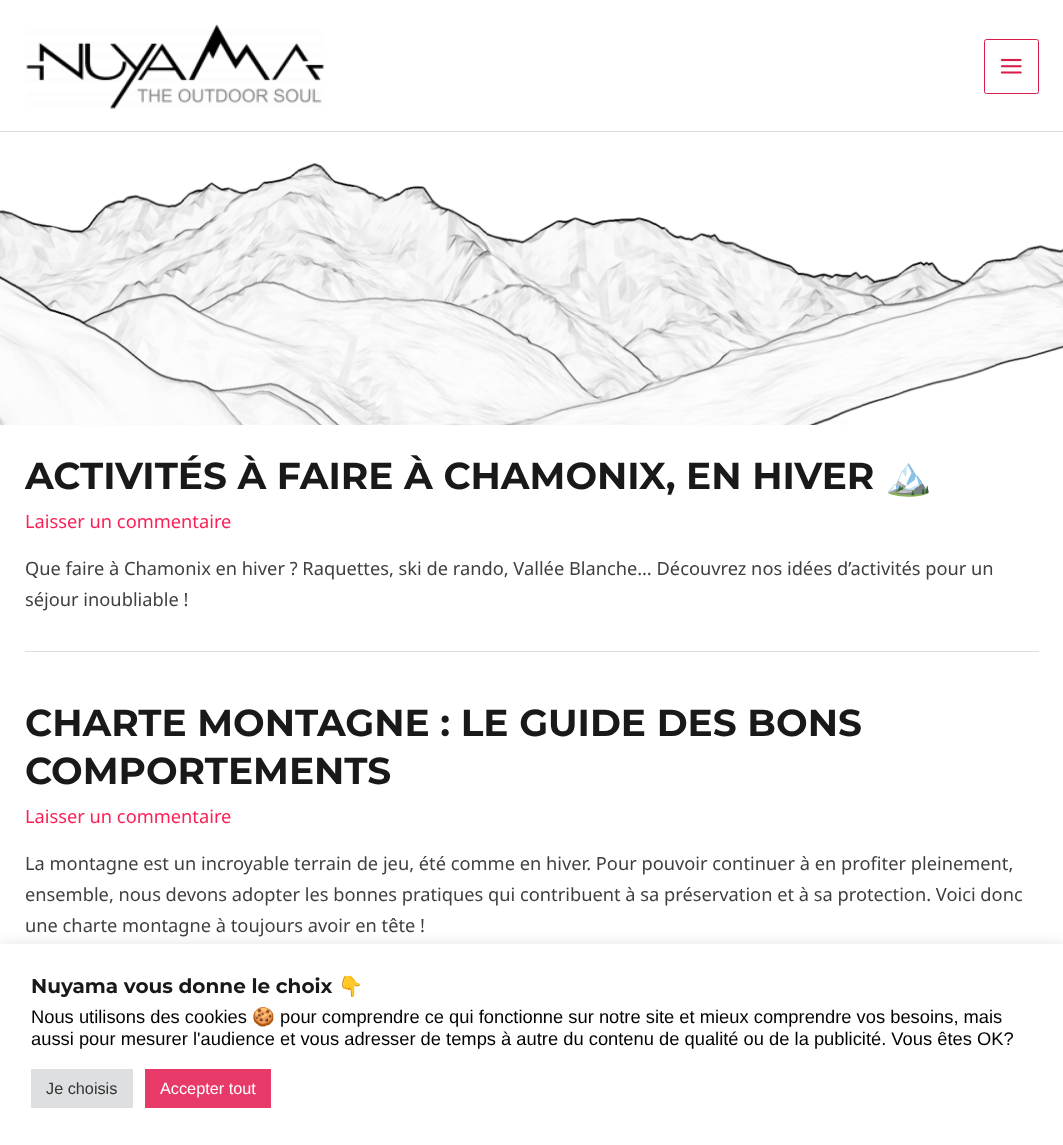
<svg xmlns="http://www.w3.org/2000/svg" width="1063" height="1145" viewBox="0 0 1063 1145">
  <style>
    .t1 { font: 100 37.5px Montserrat; fill: #191919; }
    .t2 { font: 37.5px Noto Color Emoji; fill: #191919; }
    .t3 { font: 18.25px Noto Sans; fill: #fb2056; }
    .t4 { font: 18.25px Noto Sans; fill: #404040; }
    .t5 { font: 100 20px Montserrat; fill: #191919; }
    .t6 { font: bold 20px Noto Color Emoji; fill: #191919; }
    .t7 { font: 18.33px Liberation Sans; fill: #000; }
    .t8 { font: 18.33px Noto Color Emoji; fill: #000; }
    .t9 { font: 16.25px Liberation Sans; fill: #333; }
    .t10 { font: 16.25px Liberation Sans; fill: #fff; }
  </style>
  <rect width="100%" height="100%" fill="#fff"/>
  <rect x="0" y="131" width="1063" height="1" fill="#ddd"/>
  <image x="26" y="24" width="298" height="85" href="images/1.png"/>
  <rect x="984.5" y="39.5" width="54" height="54" rx="2" fill="none" stroke="#da1c4b"/>
  <image x="1000" y="58" width="22" height="16" href="images/2.png"/>
  <image x="0" y="133" width="1063" height="292" href="images/3.png"/>
  <rect x="25" y="651" width="1014" height="1" fill="#ddd"/>
  <text x="25" y="489" class="t1">ACTIVITÉS À FAIRE À CHAMONIX, EN HIVER</text>
  <text x="885" y="489" class="t2">🏔️</text>
  <text x="25" y="528" class="t3">Laisser un commentaire</text>
  <text x="25" y="575" class="t4">Que faire à Chamonix en hiver ? Raquettes, ski de rando, Vallée Blanche… Découvrez nos idées d’activités pour un</text>
  <text x="25" y="606" class="t4">séjour inoubliable !</text>
  <text x="25" y="736" class="t1">CHARTE MONTAGNE : LE GUIDE DES BONS</text>
  <text x="25" y="784" class="t1">COMPORTEMENTS</text>
  <text x="25" y="823" class="t3">Laisser un commentaire</text>
  <text x="25" y="870" class="t4">La montagne est un incroyable terrain de jeu, été comme en hiver. Pour pouvoir continuer à en profiter pleinement,</text>
  <text x="25" y="901" class="t4">ensemble, nous devons adopter les bonnes pratiques qui contribuent à sa préservation et à sa protection. Voici donc</text>
  <text x="25" y="932" class="t4">une charte montagne à toujours avoir en tête !</text>
  <rect x="0" y="943" width="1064" height="201" fill="#acabab4d" filter="blur(6px)"/>
  <rect x="0" y="944" width="1063" height="201" fill="#fff"/>
  <text x="31" y="993" class="t5">Nuyama vous donne le choix</text>
  <text x="338" y="993" class="t6">👇</text>
  <text x="31" y="1023" class="t7">Nous utilisons des cookies</text>
  <text x="252" y="1023" class="t8">🍪</text>
  <text x="280" y="1023" class="t7">pour comprendre ce qui fonctionne sur notre site et mieux comprendre vos besoins, mais</text>
  <text x="31" y="1045" class="t7">aussi pour mesurer l'audience et vous adresser de temps à autre du contenu de qualité ou de la publicité. Vous êtes OK?</text>
  <rect x="31" y="1069" width="102" height="39" fill="#dedfe0"/>
  <text x="46" y="1094" class="t9">Je choisis</text>
  <rect x="145" y="1069" width="126" height="39" fill="#e83a68"/>
  <text x="160" y="1094" class="t10">Accepter tout</text>
</svg>
